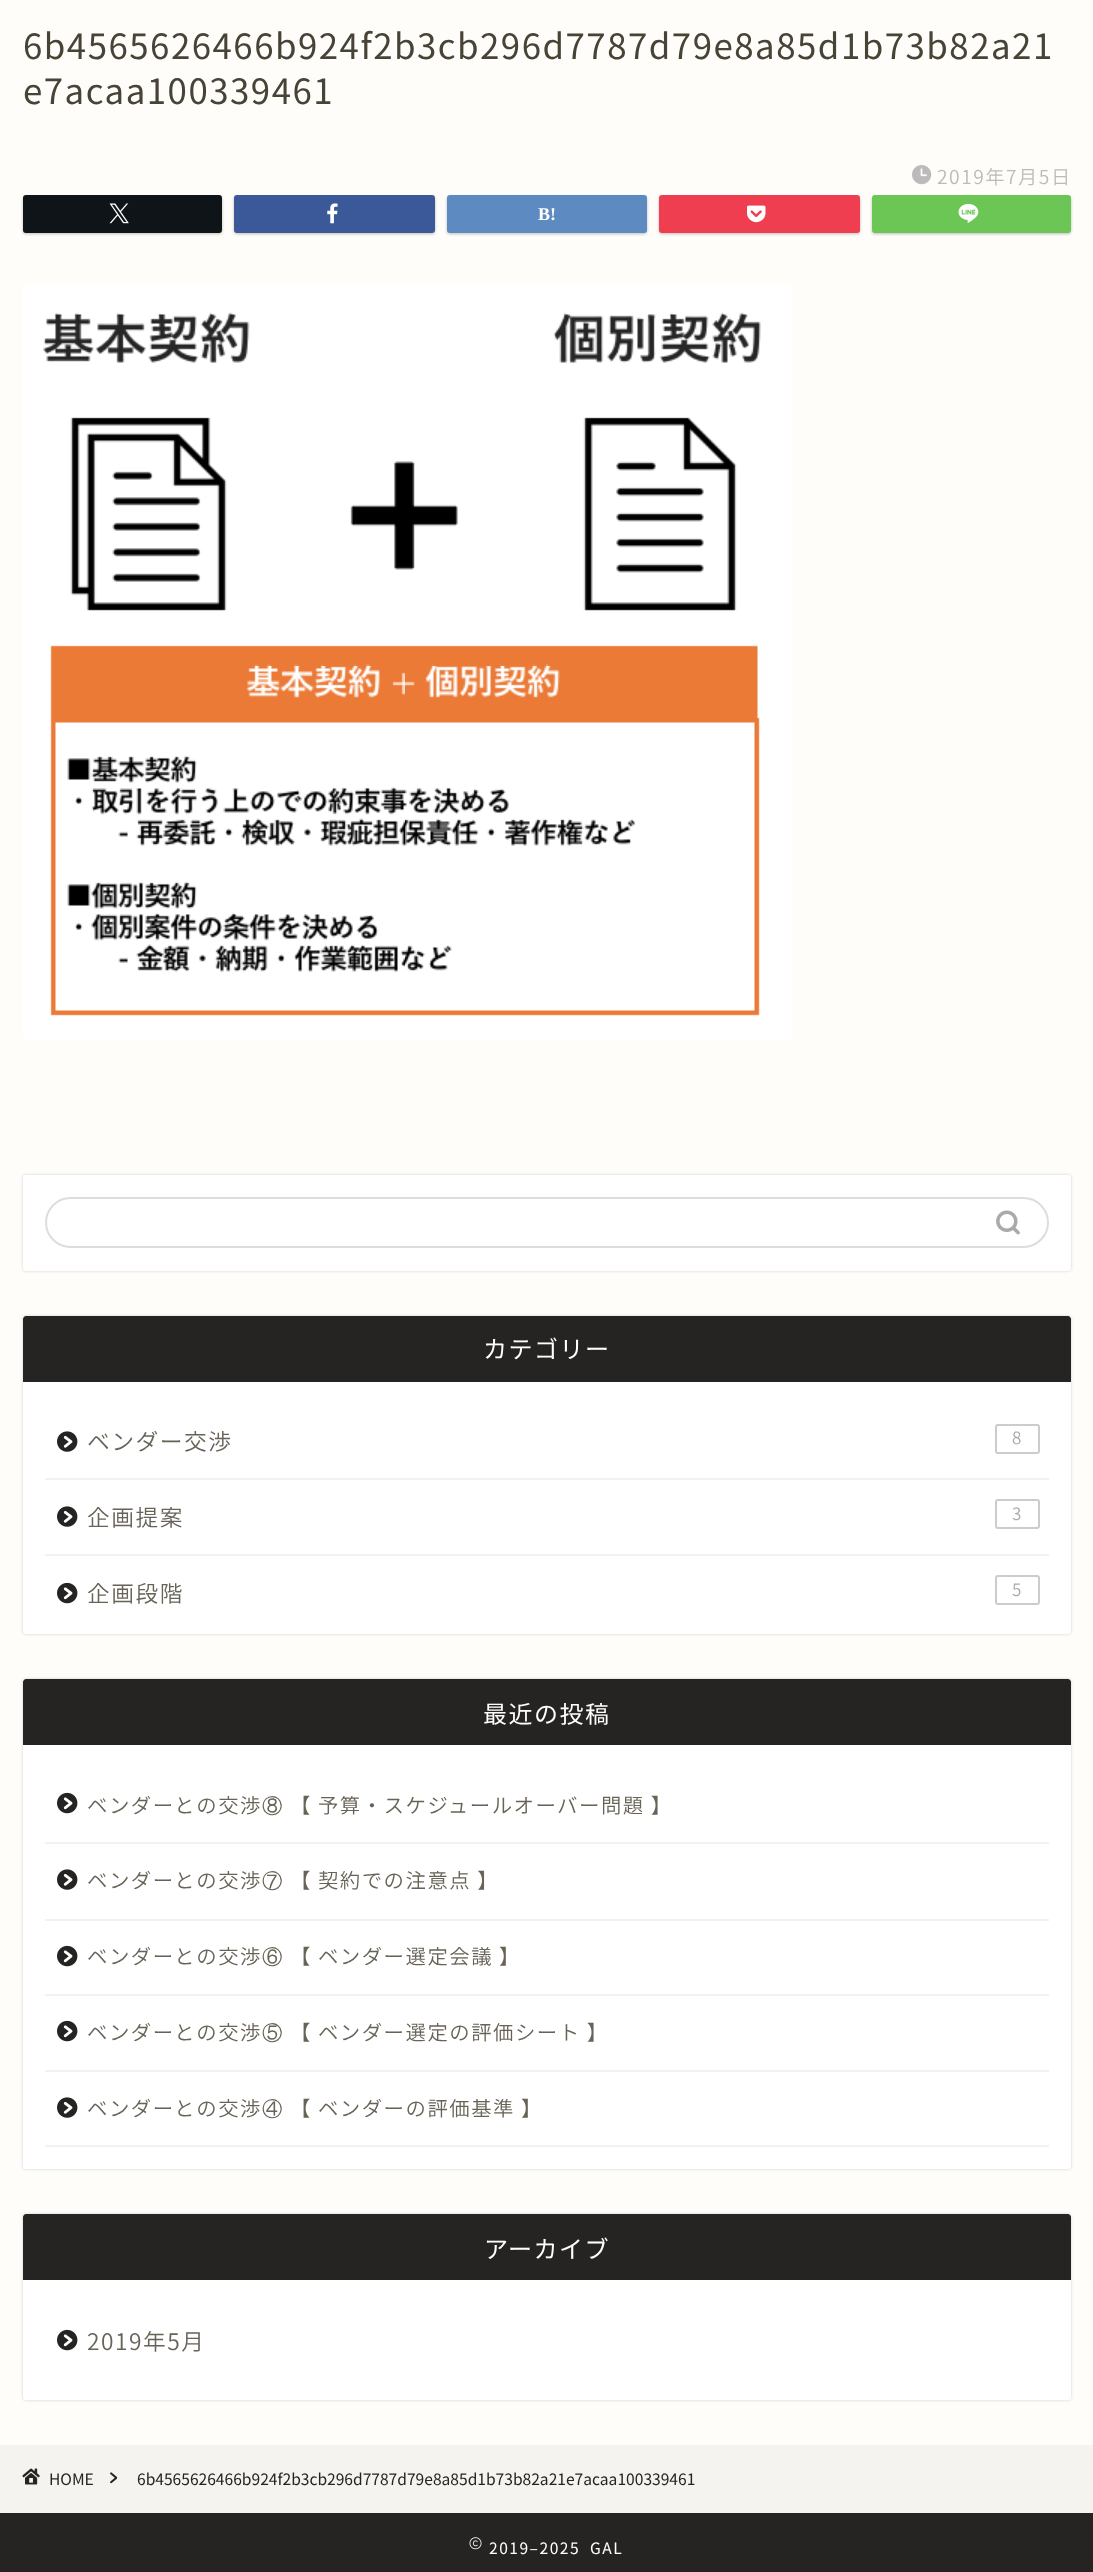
<svg xmlns="http://www.w3.org/2000/svg" width="1093" height="2572" viewBox="0 0 1093 2572">
  <style>
    .t1 { font: 34.8px Noto Sans JP; letter-spacing: 1.5px; fill: #484337; }
    .t2 { font: 300 19.25px Noto Sans JP; letter-spacing: 1.5px; fill: #bbb; }
    .t3 { font: bold 18px Liberation Serif; fill: #fff; }
    .t4 { font: 24px Noto Sans JP; letter-spacing: 1.5px; fill: #fff; }
    .t5 { font: 300 22.75px Noto Sans JP; letter-spacing: 1.5px; fill: #686357; }
    .t6 { font: 300 17px Noto Sans JP; fill: #aaa; }
    .t7 { font: 300 20.4px Noto Sans JP; letter-spacing: 1.5px; fill: #686357; }
    .t8 { font: 500 20.4px WenQuanYi Zen Hei; letter-spacing: 1.5px; fill: #686357; }
    .t9 { font: 15.6px Noto Sans JP; fill: #252422; }
    .t10 { font: 15.6px Noto Sans JP; letter-spacing: 1.5px; fill: #fff; }
  </style>
  <rect width="100%" height="100%" fill="#fffdf9"/>
  <text x="23" y="59" class="t1">6b4565626466b924f2b3cb296d7787d79e8a85d1b73b82a21</text>
  <text x="23" y="104" class="t1">e7acaa100339461</text>
  <image x="912" y="165" width="20" height="20" href="images/1.png"/>
  <text x="937" y="184" class="t2">2019年7月5日</text>
  <rect x="23" y="197" width="199" height="37" rx="3" fill="#00000040" filter="blur(1.5px)"/>
  <rect x="24.5" y="196.5" width="196" height="35" rx="1.5" fill="#0f1419" stroke="#0f1419" stroke-width="3"/>
  <image x="109" y="203" width="20" height="21" href="images/2.png"/>
  <rect x="234" y="197" width="201" height="37" rx="3" fill="#00000040" filter="blur(1.5px)"/>
  <rect x="235.5" y="196.5" width="198" height="35" rx="1.5" fill="#3b5998" stroke="#3b5998" stroke-width="3"/>
  <image x="327" y="203" width="11" height="21" href="images/3.png"/>
  <rect x="447" y="197" width="200" height="37" rx="3" fill="#00000040" filter="blur(1.5px)"/>
  <rect x="448.5" y="196.5" width="197" height="35" rx="1.5" fill="#5d8ac1" stroke="#5d8ac1" stroke-width="3"/>
  <text x="538" y="220" class="t3">B!</text>
  <rect x="659" y="197" width="201" height="37" rx="3" fill="#00000040" filter="blur(1.5px)"/>
  <rect x="660.5" y="196.5" width="198" height="35" rx="1.5" fill="#f03e51" stroke="#f03e51" stroke-width="3"/>
  <image x="747" y="205" width="19" height="18" href="images/4.png"/>
  <rect x="872" y="197" width="199" height="37" rx="3" fill="#00000040" filter="blur(1.5px)"/>
  <rect x="873.5" y="196.5" width="196" height="35" rx="1.5" fill="#6cc655" stroke="#6cc655" stroke-width="3"/>
  <image x="958" y="203" width="21" height="20" href="images/5.png"/>
  <image x="23" y="285" width="769" height="754" href="images/6.png"/>
  <rect x="23" y="1175" width="1048" height="96" rx="3" fill="#0000002e" filter="blur(1.5px)"/>
  <rect x="23" y="1175" width="1048" height="96" rx="3" fill="#fff"/>
  <rect x="46" y="1198" width="1002" height="49" rx="24.5" fill="none" stroke="#ddd" stroke-width="2"/>
  <image x="996" y="1210" width="24" height="25" href="images/7.png"/>
  <rect x="23" y="1316" width="1048" height="318" rx="3" fill="#0000002e" filter="blur(1.5px)"/>
  <rect x="23" y="1316" width="1048" height="318" rx="3" fill="#fff"/>
  <path d="M26 1316H1068C1069.5 1316 1071 1317.5 1071 1319V1382H23V1319C23 1317.5 24.5 1316 26 1316Z" fill="#252422"/>
  <text x="483" y="1358" class="t4">カテゴリー</text>
  <rect x="45" y="1478" width="1004" height="2" fill="#f2f2f2"/>
  <image x="57" y="1431" width="21" height="21" href="images/8.png"/>
  <text x="87" y="1450" class="t5">ベンダー交渉</text>
  <rect x="996" y="1425" width="43" height="28" rx="2" fill="none" stroke="#ccc" stroke-width="2"/>
  <text x="1012" y="1444" class="t6">8</text>
  <rect x="45" y="1554" width="1004" height="2" fill="#f2f2f2"/>
  <image x="57" y="1506" width="21" height="21" href="images/8.png"/>
  <text x="87" y="1526" class="t5">企画提案</text>
  <rect x="996" y="1500" width="43" height="28" rx="2" fill="none" stroke="#ccc" stroke-width="2"/>
  <text x="1012" y="1520" class="t6">3</text>
  <image x="57" y="1582" width="21" height="22" href="images/9.png"/>
  <text x="87" y="1602" class="t5">企画段階</text>
  <rect x="996" y="1576" width="43" height="28" rx="2" fill="none" stroke="#ccc" stroke-width="2"/>
  <text x="1012" y="1596" class="t6">5</text>
  <rect x="23" y="1679" width="1048" height="490" rx="3" fill="#0000002e" filter="blur(1.5px)"/>
  <rect x="23" y="1679" width="1048" height="490" rx="3" fill="#fff"/>
  <path d="M26 1679H1068C1069.5 1679 1071 1680.5 1071 1682V1745H23V1682C23 1680.5 24.5 1679 26 1679Z" fill="#252422"/>
  <text x="483" y="1723" class="t4">最近の投稿</text>
  <rect x="45" y="1842" width="1004" height="2" fill="#f2f2f2"/>
  <image x="57" y="1792" width="21" height="22" href="images/9.png"/>
  <text x="87" y="1813" class="t7">ベンダーとの交渉</text>
  <text x="262" y="1813" class="t8">⑧</text>
  <text x="290" y="1813" class="t7">【 予算・スケジュールオーバー問題 】</text>
  <rect x="45" y="1919" width="1004" height="2" fill="#f2f2f2"/>
  <image x="57" y="1869" width="21" height="21" href="images/8.png"/>
  <text x="87" y="1888" class="t7">ベンダーとの交渉</text>
  <text x="262" y="1888" class="t8">⑦</text>
  <text x="290" y="1888" class="t7">【 契約での注意点 】</text>
  <rect x="45" y="1994" width="1004" height="2" fill="#f2f2f2"/>
  <image x="57" y="1945" width="21" height="22" href="images/9.png"/>
  <text x="87" y="1964" class="t7">ベンダーとの交渉</text>
  <text x="262" y="1964" class="t8">⑥</text>
  <text x="290" y="1964" class="t7">【 ベンダー選定会議 】</text>
  <rect x="45" y="2070" width="1004" height="2" fill="#f2f2f2"/>
  <image x="57" y="2020" width="21" height="22" href="images/9.png"/>
  <text x="87" y="2040" class="t7">ベンダーとの交渉</text>
  <text x="262" y="2040" class="t8">⑤</text>
  <text x="290" y="2040" class="t7">【 ベンダー選定の評価シート 】</text>
  <rect x="45" y="2145" width="1004" height="2" fill="#f2f2f2"/>
  <image x="57" y="2097" width="21" height="21" href="images/8.png"/>
  <text x="87" y="2116" class="t7">ベンダーとの交渉</text>
  <text x="262" y="2116" class="t8">④</text>
  <text x="290" y="2116" class="t7">【 ベンダーの評価基準 】</text>
  <rect x="23" y="2214" width="1048" height="186" rx="3" fill="#0000002e" filter="blur(1.5px)"/>
  <rect x="23" y="2214" width="1048" height="186" rx="3" fill="#fff"/>
  <path d="M26 2214H1068C1069.5 2214 1071 2215.5 1071 2217V2280H23V2217C23 2215.5 24.5 2214 26 2214Z" fill="#252422"/>
  <text x="484" y="2258" class="t4">アーカイブ</text>
  <image x="57" y="2329" width="21" height="22" href="images/9.png"/>
  <text x="87" y="2350" class="t5">2019年5月</text>
  <rect x="0" y="2445" width="1093" height="68" fill="#f5f3ef"/>
  <image x="22" y="2468" width="18" height="17" href="images/10.png"/>
  <text x="49" y="2485" class="t9">HOME</text>
  <image x="110" y="2472" width="8" height="12" href="images/11.png"/>
  <text x="137" y="2485" class="t9">6b4565626466b924f2b3cb296d7787d79e8a85d1b73b82a21e7acaa100339461</text>
  <rect x="0" y="2513" width="1093" height="59" fill="#252422"/>
  <image x="469" y="2537" width="13" height="13" href="images/12.png"/>
  <text x="489" y="2554" class="t10" xml:space="preserve">2019–2025  GAL</text>
</svg>
